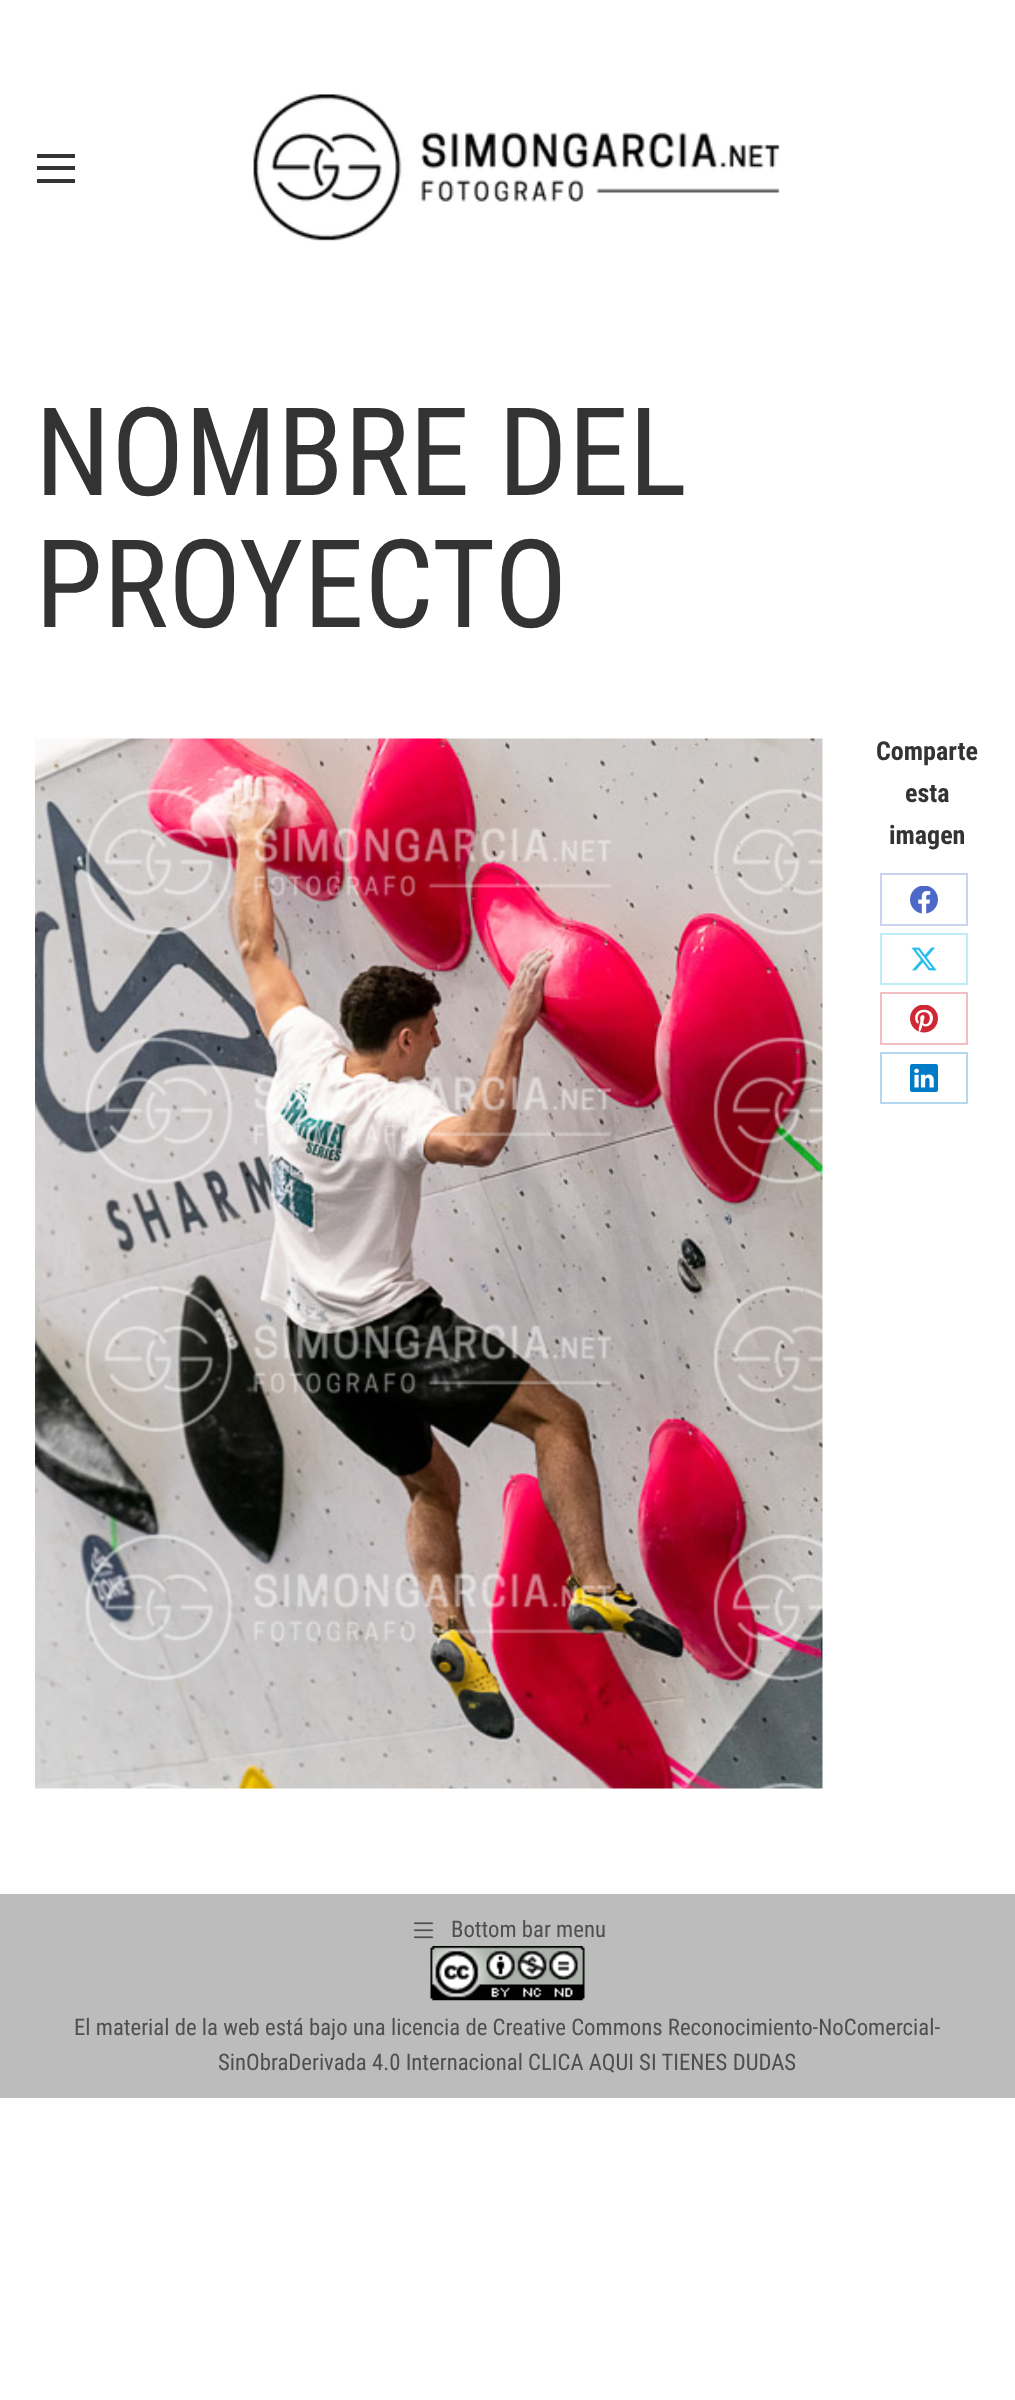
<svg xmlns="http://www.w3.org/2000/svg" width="1015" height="2400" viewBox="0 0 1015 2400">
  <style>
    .t1 { font: 122.5px Roboto Condensed; fill: #333; }
    .t2 { font: bold 26px Roboto Condensed; fill: #333; }
    .t3 { font: 22.75px Roboto Condensed; fill: #4f4f4f; }
  </style>
  <rect width="100%" height="100%" fill="#fff"/>
  <rect x="37" y="154" width="38" height="4" fill="#333"/>
  <rect x="37" y="166" width="38" height="4" fill="#333"/>
  <rect x="37" y="179" width="38" height="4" fill="#333"/>
  <image x="253" y="94" width="527" height="147" href="images/1.png"/>
  <text x="35" y="495" class="t1">NOMBRE DEL</text>
  <text x="35" y="627" class="t1">PROYECTO</text>
  <image x="35" y="738" width="788" height="1051" href="images/2.png"/>
  <text x="876" y="760" class="t2">Comparte</text>
  <text x="905" y="802" class="t2">esta</text>
  <text x="889" y="844" class="t2">imagen</text>
  <rect x="881" y="874" width="86" height="51" fill="none" stroke="#c9d2ee" stroke-width="2"/>
  <image x="910" y="886" width="28" height="28" href="images/3.png"/>
  <rect x="881" y="934" width="86" height="50" fill="none" stroke="#bfecf9" stroke-width="2"/>
  <image x="911" y="947" width="26" height="24" href="images/4.png"/>
  <rect x="881" y="993" width="86" height="51" fill="none" stroke="#f1bfc2" stroke-width="2"/>
  <image x="910" y="1005" width="28" height="28" href="images/5.png"/>
  <rect x="881" y="1053" width="86" height="50" fill="none" stroke="#b3d7ee" stroke-width="2"/>
  <image x="910" y="1064" width="28" height="28" href="images/6.png"/>
  <rect x="0" y="1894" width="1015" height="204" fill="#bcbcbc"/>
  <image x="413" y="1922" width="21" height="17" href="images/7.png"/>
  <text x="451" y="1937" class="t3">Bottom bar menu</text>
  <image x="430" y="1946" width="155" height="55" href="images/8.png"/>
  <text x="74" y="2035" class="t3">El material de la web está bajo una licencia de Creative Commons Reconocimiento-NoComercial-</text>
  <text x="218" y="2070" class="t3">SinObraDerivada 4.0 Internacional CLICA AQUI SI TIENES DUDAS</text>
</svg>
